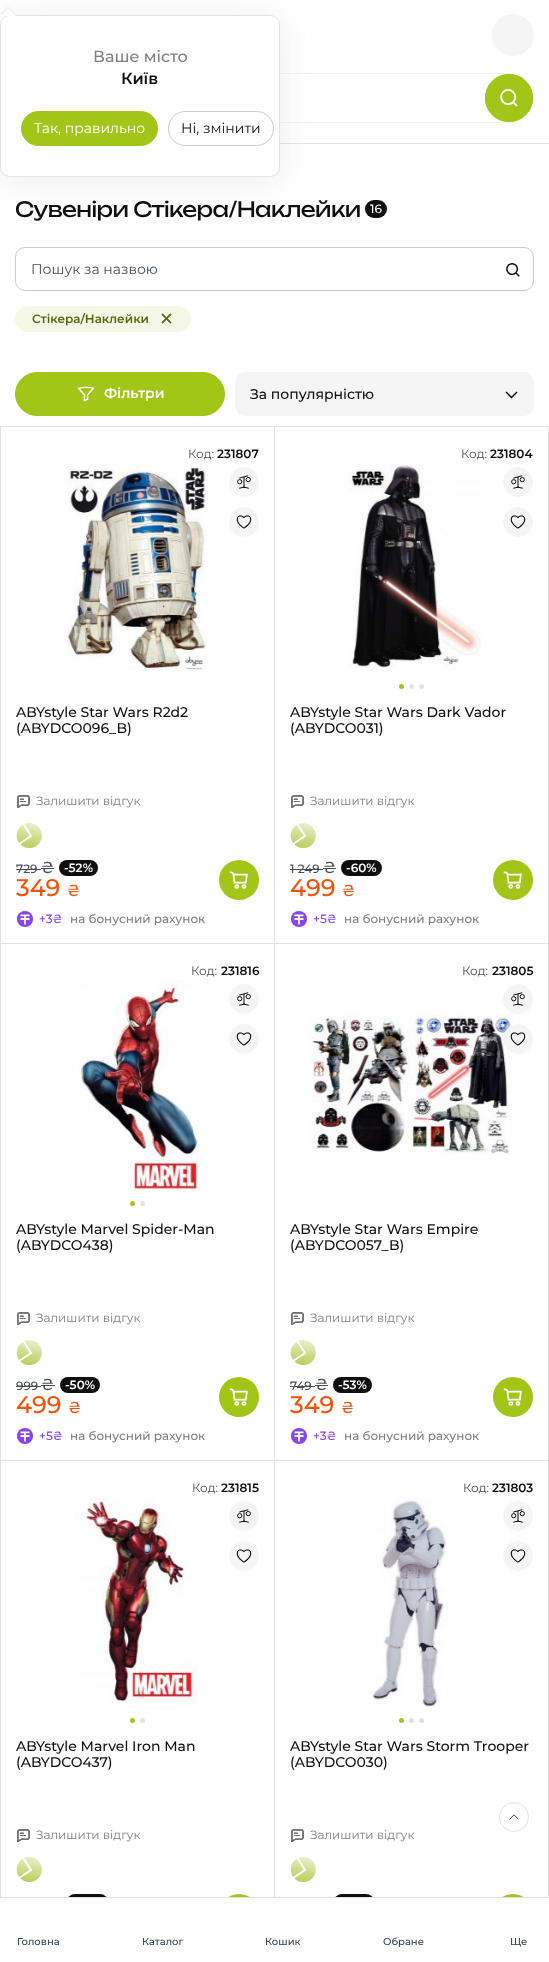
<svg xmlns="http://www.w3.org/2000/svg" width="549" height="1962" viewBox="0 0 549 1962">
  <style>
    .t1 { font: 500 16px Montserrat; fill: #808080; }
    .t2 { font: 600 16px Montserrat; fill: #0f0f0f; }
    .t3 { font: 14px Montserrat; fill: #fff; }
    .t4 { font: 14px Montserrat; fill: #0f0f0f; }
    .t5 { font: 21px Unbounded; letter-spacing: -0.6px; fill: #0f0f0f; }
    .t6 { font: 500 12px Montserrat; fill: #fff; }
    .t7 { font: 14px Montserrat; fill: #484f54; }
    .t8 { font: 600 12px Montserrat; fill: #556710; }
    .t9 { font: 600 14px Montserrat; fill: #fff; }
    .t10 { font: 500 14px Montserrat; fill: #0f0f0f; }
    .t11 { font: 12px Montserrat; fill: #484f54; }
    .t12 { font: 600 12px Montserrat; fill: #0f0f0f; }
    .t13 { font: 12px Montserrat; fill: #808080; }
    .t14 { font: 500 12px Montserrat; fill: #484f54; }
    .t15 { font: 500 16px Montserrat; fill: #484f54; }
    .t16 { font: 600 12px Montserrat; fill: #fff; }
    .t17 { font: 500 24px Montserrat; fill: #f2530c; }
    .t18 { font: 500 16px Montserrat; fill: #f2530c; }
    .t19 { font: 500 12px Montserrat; fill: #8744f4; }
    .t20 { font: 500 12px Montserrat; fill: #808080; }
    .t21 { font: 500 10px Montserrat; fill: #2e4055; }
  </style>
  <rect width="100%" height="100%" fill="#fff"/>
  <rect x="280" y="143" width="269" height="1" fill="#e3e3e3"/>
  <rect x="15.5" y="73.5" width="518" height="49" rx="24.5" fill="none" stroke="#f2f2f2"/>
  <rect x="0" y="19" width="280" height="162" rx="10" fill="#b9b9b940" filter="blur(17.5px)"/>
  <path d="M16 15H0L8 7Z" fill="#e3e3e3"/>
  <rect x="0.5" y="15.5" width="279" height="161" rx="9.5" fill="#fff" stroke="#e3e3e3"/>
  <path d="M16 16H0L8 8Z" fill="#fff"/>
  <text x="93" y="62" class="t1">Ваше місто</text>
  <text x="121" y="84" class="t2">Київ</text>
  <rect x="21.5" y="111.5" width="136" height="34" rx="17" fill="#a2c617" stroke="#a2c617"/>
  <text x="34" y="133" class="t3">Так, правильно</text>
  <rect x="168.5" y="111.5" width="105" height="34" rx="17" fill="none" stroke="#cacaca"/>
  <text x="181" y="133" class="t4">Ні, змінити</text>
  <circle cx="513" cy="35" r="21" fill="#f5f5f5"/>
  <circle cx="509" cy="98" r="24" fill="#a2c617"/>
  <image x="500" y="89" width="18" height="18" href="images/1.png"/>
  <circle cx="509" cy="98" r="23.5" fill="none" stroke="#a2c617"/>
  <text x="15" y="217" class="t5">Сувеніри Стікера/Наклейки</text>
  <rect x="365" y="200" width="22" height="18" rx="9" fill="#0f0f0f"/>
  <text x="370" y="213" class="t6">16</text>
  <rect x="15.5" y="247.5" width="518" height="43" rx="9.5" fill="none" stroke="#cacaca"/>
  <text x="31" y="274" class="t7">Пошук за назвою</text>
  <image x="506" y="263" width="14" height="14" href="images/2.png"/>
  <rect x="15.5" y="306.5" width="175" height="25" rx="12.5" fill="#f5f8e7" stroke="#f5f8e7"/>
  <text x="32" y="323" class="t8">Стікера/Наклейки</text>
  <image x="161" y="313" width="11" height="11" href="images/3.png"/>
  <rect x="15.5" y="372.5" width="209" height="43" rx="21.5" fill="#a2c617" stroke="#a2c617"/>
  <image x="77" y="386" width="18" height="16" href="images/4.png"/>
  <text x="104" y="398" class="t9">Фільтри</text>
  <rect x="235" y="372" width="299" height="44" rx="10" fill="#f5f5f5"/>
  <text x="250" y="399" class="t10">За популярністю</text>
  <image x="505" y="391" width="13" height="8" href="images/5.png"/>
  <rect x="0" y="426" width="1" height="1471" fill="#e3e3e3"/>
  <rect x="1" y="426" width="548" height="1" fill="#e3e3e3"/>
  <rect x="274" y="426" width="1" height="518" fill="#e3e3e3"/>
  <rect x="1" y="943" width="274" height="1" fill="#e3e3e3"/>
  <text x="188" y="458" class="t11">Код:</text>
  <text x="217" y="458" class="t12">231807</text>
  <image x="67" y="464" width="140" height="207" href="images/6.png"/>
  <circle cx="244" cy="482" r="14.5" fill="#f5f5f5" stroke="#f5f5f5"/>
  <image x="237" y="475" width="14" height="14" href="images/7.png"/>
  <circle cx="244" cy="522" r="14.5" fill="#f5f5f5" stroke="#f5f5f5"/>
  <image x="236" y="515" width="16" height="14" href="images/8.png"/>
  <text x="16" y="717" class="t10">ABYstyle Star Wars R2d2</text>
  <text x="16" y="733" class="t10">(ABYDCO096_B)</text>
  <image x="17" y="795" width="13" height="13" href="images/9.png"/>
  <text x="36" y="805" class="t13">Залишити відгук</text>
  <image x="16" y="823" width="26" height="26" href="images/10.png"/>
  <text x="16" y="873" class="t14">729</text>
  <rect x="16" y="869" width="25" height="1" fill="#484f54"/>
  <text x="41" y="873" class="t15">₴</text>
  <rect x="41" y="868" width="13" height="1" fill="#484f54"/>
  <rect x="59" y="860" width="39" height="16" rx="8" fill="#0f0f0f"/>
  <text x="64" y="872" class="t16">-52%</text>
  <text x="16" y="896" class="t17">349</text>
  <text x="67" y="896" class="t18">₴</text>
  <circle cx="239" cy="880" r="20" fill="#a2c617"/>
  <image x="229" y="871" width="19" height="18" href="images/11.png"/>
  <image x="16" y="911" width="18" height="16" href="images/12.png"/>
  <text x="39" y="923" class="t19">+3₴</text>
  <text x="70" y="923" class="t20">на бонусний рахунок</text>
  <rect x="548" y="426" width="1" height="518" fill="#e3e3e3"/>
  <rect x="275" y="943" width="274" height="1" fill="#e3e3e3"/>
  <text x="461" y="458" class="t11">Код:</text>
  <text x="490" y="458" class="t12">231804</text>
  <image x="348" y="464" width="134" height="206" href="images/13.png"/>
  <circle cx="401.5" cy="686.5" r="2.5" fill="#a2c617"/>
  <circle cx="411.5" cy="686.5" r="2.5" fill="#e3e3e3"/>
  <circle cx="421.5" cy="686.5" r="2.5" fill="#e3e3e3"/>
  <circle cx="518" cy="482" r="14.5" fill="#f5f5f5" stroke="#f5f5f5"/>
  <image x="511" y="475" width="14" height="14" href="images/7.png"/>
  <circle cx="518" cy="522" r="14.5" fill="#f5f5f5" stroke="#f5f5f5"/>
  <image x="510" y="515" width="16" height="14" href="images/8.png"/>
  <text x="290" y="717" class="t10">ABYstyle Star Wars Dark Vador</text>
  <text x="290" y="733" class="t10">(ABYDCO031)</text>
  <image x="291" y="795" width="13" height="13" href="images/9.png"/>
  <text x="310" y="805" class="t13">Залишити відгук</text>
  <image x="290" y="823" width="26" height="26" href="images/10.png"/>
  <text x="290" y="873" class="t14">1 249</text>
  <rect x="290" y="869" width="33" height="1" fill="#484f54"/>
  <text x="323" y="873" class="t15">₴</text>
  <rect x="323" y="868" width="13" height="1" fill="#484f54"/>
  <rect x="341" y="860" width="41" height="16" rx="8" fill="#0f0f0f"/>
  <text x="346" y="872" class="t16">-60%</text>
  <text x="290" y="896" class="t17">499</text>
  <text x="342" y="896" class="t18">₴</text>
  <circle cx="513" cy="880" r="20" fill="#a2c617"/>
  <image x="503" y="871" width="19" height="18" href="images/14.png"/>
  <image x="290" y="911" width="18" height="16" href="images/12.png"/>
  <text x="313" y="923" class="t19">+5₴</text>
  <text x="344" y="923" class="t20">на бонусний рахунок</text>
  <rect x="274" y="943" width="1" height="518" fill="#e3e3e3"/>
  <rect x="1" y="1460" width="274" height="1" fill="#e3e3e3"/>
  <text x="191" y="975" class="t11">Код:</text>
  <text x="221" y="975" class="t12">231816</text>
  <image x="77" y="981" width="122" height="210" href="images/15.png"/>
  <circle cx="132.5" cy="1203.5" r="2.5" fill="#a2c617"/>
  <circle cx="142.5" cy="1203.5" r="2.5" fill="#e3e3e3"/>
  <circle cx="244" cy="999" r="14.5" fill="#f5f5f5" stroke="#f5f5f5"/>
  <image x="237" y="992" width="14" height="14" href="images/7.png"/>
  <circle cx="244" cy="1039" r="14.5" fill="#f5f5f5" stroke="#f5f5f5"/>
  <image x="236" y="1032" width="16" height="14" href="images/8.png"/>
  <text x="16" y="1234" class="t10">ABYstyle Marvel Spider-Man</text>
  <text x="16" y="1250" class="t10">(ABYDCO438)</text>
  <image x="17" y="1312" width="13" height="13" href="images/9.png"/>
  <text x="36" y="1322" class="t13">Залишити відгук</text>
  <image x="16" y="1340" width="26" height="26" href="images/10.png"/>
  <text x="16" y="1390" class="t14">999</text>
  <rect x="16" y="1386" width="25" height="1" fill="#484f54"/>
  <text x="41" y="1390" class="t15">₴</text>
  <rect x="41" y="1385" width="14" height="1" fill="#484f54"/>
  <rect x="60" y="1377" width="40" height="16" rx="8" fill="#0f0f0f"/>
  <text x="65" y="1389" class="t16">-50%</text>
  <text x="16" y="1413" class="t17">499</text>
  <text x="68" y="1413" class="t18">₴</text>
  <circle cx="239" cy="1397" r="20" fill="#a2c617"/>
  <image x="229" y="1388" width="19" height="18" href="images/11.png"/>
  <image x="16" y="1428" width="18" height="16" href="images/12.png"/>
  <text x="39" y="1440" class="t19">+5₴</text>
  <text x="70" y="1440" class="t20">на бонусний рахунок</text>
  <rect x="548" y="943" width="1" height="518" fill="#e3e3e3"/>
  <rect x="275" y="1460" width="274" height="1" fill="#e3e3e3"/>
  <text x="462" y="975" class="t11">Код:</text>
  <text x="492" y="975" class="t12">231805</text>
  <image x="307" y="1009" width="206" height="147" href="images/16.png"/>
  <circle cx="518" cy="999" r="14.5" fill="#f5f5f5" stroke="#f5f5f5"/>
  <image x="511" y="992" width="14" height="14" href="images/7.png"/>
  <circle cx="518" cy="1039" r="14.5" fill="#f5f5f5" stroke="#f5f5f5"/>
  <image x="510" y="1032" width="16" height="14" href="images/8.png"/>
  <text x="290" y="1234" class="t10">ABYstyle Star Wars Empire</text>
  <text x="290" y="1250" class="t10">(ABYDCO057_B)</text>
  <image x="291" y="1312" width="13" height="13" href="images/9.png"/>
  <text x="310" y="1322" class="t13">Залишити відгук</text>
  <image x="290" y="1340" width="26" height="26" href="images/10.png"/>
  <text x="290" y="1390" class="t14">749</text>
  <rect x="290" y="1386" width="25" height="1" fill="#484f54"/>
  <text x="315" y="1390" class="t15">₴</text>
  <rect x="315" y="1385" width="13" height="1" fill="#484f54"/>
  <rect x="333" y="1377" width="39" height="16" rx="8" fill="#0f0f0f"/>
  <text x="338" y="1389" class="t16">-53%</text>
  <text x="290" y="1413" class="t17">349</text>
  <text x="341" y="1413" class="t18">₴</text>
  <circle cx="513" cy="1397" r="20" fill="#a2c617"/>
  <image x="503" y="1388" width="19" height="18" href="images/14.png"/>
  <image x="290" y="1428" width="18" height="16" href="images/12.png"/>
  <text x="313" y="1440" class="t19">+3₴</text>
  <text x="344" y="1440" class="t20">на бонусний рахунок</text>
  <rect x="274" y="1460" width="1" height="437" fill="#e3e3e3"/>
  <text x="192" y="1492" class="t11">Код:</text>
  <text x="221" y="1492" class="t12">231815</text>
  <image x="74" y="1498" width="124" height="206" href="images/17.png"/>
  <circle cx="132.5" cy="1720.5" r="2.5" fill="#a2c617"/>
  <circle cx="142.5" cy="1720.5" r="2.5" fill="#e3e3e3"/>
  <circle cx="244" cy="1516" r="14.5" fill="#f5f5f5" stroke="#f5f5f5"/>
  <image x="237" y="1509" width="14" height="14" href="images/7.png"/>
  <circle cx="244" cy="1556" r="14.5" fill="#f5f5f5" stroke="#f5f5f5"/>
  <image x="236" y="1549" width="16" height="14" href="images/8.png"/>
  <text x="16" y="1751" class="t10">ABYstyle Marvel Iron Man</text>
  <text x="16" y="1767" class="t10">(ABYDCO437)</text>
  <image x="17" y="1829" width="13" height="13" href="images/9.png"/>
  <text x="36" y="1839" class="t13">Залишити відгук</text>
  <image x="16" y="1857" width="26" height="26" href="images/10.png"/>
  <rect x="67" y="1894" width="41" height="16" rx="8" fill="#0f0f0f"/>
  <circle cx="239" cy="1914" r="20" fill="#a2c617"/>
  <rect x="548" y="1460" width="1" height="437" fill="#e3e3e3"/>
  <text x="463" y="1492" class="t11">Код:</text>
  <text x="492" y="1492" class="t12">231803</text>
  <image x="369" y="1498" width="78" height="210" href="images/18.png"/>
  <circle cx="401.5" cy="1720.5" r="2.5" fill="#a2c617"/>
  <circle cx="411.5" cy="1720.5" r="2.5" fill="#e3e3e3"/>
  <circle cx="421.5" cy="1720.5" r="2.5" fill="#e3e3e3"/>
  <circle cx="518" cy="1516" r="14.5" fill="#f5f5f5" stroke="#f5f5f5"/>
  <image x="511" y="1509" width="14" height="14" href="images/7.png"/>
  <circle cx="518" cy="1556" r="14.5" fill="#f5f5f5" stroke="#f5f5f5"/>
  <image x="510" y="1549" width="16" height="14" href="images/8.png"/>
  <text x="290" y="1751" class="t10">ABYstyle Star Wars Storm Trooper</text>
  <text x="290" y="1767" class="t10">(ABYDCO030)</text>
  <image x="291" y="1829" width="13" height="13" href="images/9.png"/>
  <text x="310" y="1839" class="t13">Залишити відгук</text>
  <image x="290" y="1857" width="26" height="26" href="images/10.png"/>
  <rect x="334" y="1894" width="40" height="16" rx="8" fill="#0f0f0f"/>
  <circle cx="513" cy="1914" r="20" fill="#a2c617"/>
  <image x="509" y="1814" width="10" height="6" href="images/19.png"/>
  <circle cx="514" cy="1817" r="14.5" fill="none" stroke="#e3e3e3"/>
  <rect x="67" y="1898" width="466" height="36" fill="#fff"/>
  <rect x="0" y="1897" width="549" height="1" fill="#dde3e9"/>
  <text x="17" y="1945" class="t21">Головна</text>
  <text x="142" y="1945" class="t21">Каталог</text>
  <text x="265" y="1945" class="t21">Кошик</text>
  <text x="383" y="1945" class="t21">Обране</text>
  <text x="510" y="1945" class="t21">Ще</text>
</svg>
